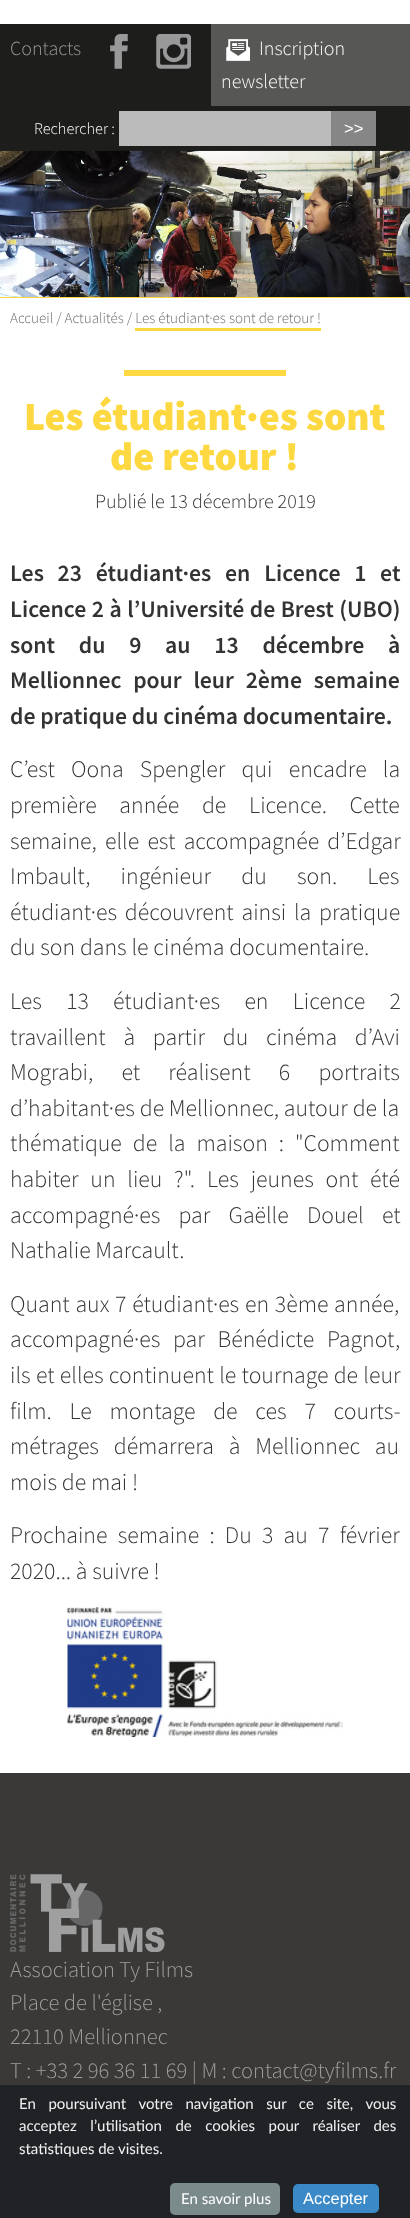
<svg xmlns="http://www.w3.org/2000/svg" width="410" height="2218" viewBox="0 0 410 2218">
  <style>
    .t1 { font: 300 20px Source Sans Pro; fill: #999; }
    .t2 { font: 300 20px Source Sans Pro; fill: #fff; }
    .t3 { font: 300 16.25px Source Sans Pro; fill: #fff; }
    .t4 { font: 16.5px Liberation Sans; fill: #fff; }
    .t5 { font: 300 15px Source Sans Pro; fill: #6b6b6a; }
    .t6 { font: 900 40px Source Sans Pro; fill: #fdd841; }
    .t7 { font: 300 20px Source Sans Pro; fill: #333; }
    .t8 { font: 600 23.75px Source Sans Pro; fill: #333; }
    .t9 { font: 300 23.75px Source Sans Pro; fill: #333; }
    .t10 { font: 300 22.5px Source Sans Pro; fill: #9f9f9f; }
    .t11 { font: 15px Lato; fill: #f1f1f3; }
    .t12 { font: 15px Lato; fill: #fff; }
  </style>
  <rect width="100%" height="100%" fill="#fff"/>
  <rect x="0" y="24" width="410" height="127" fill="#1d1d1b"/>
  <text x="10" y="55" class="t1">Contacts</text>
  <image x="110" y="34" width="18" height="35" href="images/1.png"/>
  <image x="156" y="34" width="35" height="35" href="images/2.png"/>
  <rect x="211" y="24" width="199" height="82" fill="#575756"/>
  <image x="226" y="39" width="24" height="22" href="images/3.png"/>
  <text x="259" y="55" class="t2">Inscription</text>
  <text x="221" y="88" class="t2">newsletter</text>
  <text x="34" y="134" class="t3">Rechercher :</text>
  <rect x="119" y="111" width="212" height="35" fill="#bbb"/>
  <rect x="331" y="111" width="45" height="35" fill="#868686"/>
  <text x="344" y="134" class="t4">&gt;&gt;</text>
  <rect x="0" y="297" width="410" height="1" fill="#fdd841"/>
  <image x="0" y="150" width="410" height="147" href="images/4.png"/>
  <text x="10" y="323" class="t5">Accueil / Actualités / Les étudiant·es sont de retour !</text>
  <rect x="135" y="328" width="186" height="3" fill="#fdd841"/>
  <rect x="124" y="370" width="162" height="6" fill="#fdd841"/>
  <text x="24" y="430" class="t6">Les étudiant·es sont</text>
  <text x="110" y="470" class="t6">de retour !</text>
  <text x="95" y="508" class="t7">Publié le 13 décembre 2019</text>
  <text x="10" y="581" word-spacing="9" class="t8">Les 23 étudiant·es en Licence 1 et</text>
  <text x="10" y="617" word-spacing="0.75" class="t8">Licence 2 à l’Université de Brest (UBO)</text>
  <text x="10" y="653" word-spacing="19" class="t8">sont du 9 au 13 décembre à</text>
  <text x="10" y="688" word-spacing="7" class="t8">Mellionnec pour leur 2ème semaine</text>
  <text x="10" y="724" class="t8">de pratique du cinéma documentaire.</text>
  <text x="10" y="777" word-spacing="11.5" class="t9">C’est Oona Spengler qui encadre la</text>
  <text x="10" y="813" word-spacing="18" class="t9">première année de Licence. Cette</text>
  <text x="10" y="849" word-spacing="3.5" class="t9">semaine, elle est accompagnée d’Edgar</text>
  <text x="10" y="884" word-spacing="25.5" class="t9">Imbault, ingénieur du son. Les</text>
  <text x="10" y="920" word-spacing="3" class="t9">étudiant·es découvrent ainsi la pratique</text>
  <text x="10" y="955" class="t9">du son dans le cinéma documentaire.</text>
  <text x="10" y="1009" word-spacing="19.5" class="t9">Les 13 étudiant·es en Licence 2</text>
  <text x="10" y="1045" word-spacing="13" class="t9">travaillent à partir du cinéma d’Avi</text>
  <text x="10" y="1080" word-spacing="23.5" class="t9">Mograbi, et réalisent 6 portraits</text>
  <text x="10" y="1116" class="t9">d’habitant·es de Mellionnec, autour de la</text>
  <text x="10" y="1151" word-spacing="6.25" class="t9">thématique de la maison : "Comment</text>
  <text x="10" y="1187" word-spacing="7" class="t9">habiter un lieu ?".</text>
  <text x="207" y="1187" word-spacing="7" class="t9">Les jeunes ont été</text>
  <text x="10" y="1223" word-spacing="13.5" class="t9">accompagné·es par Gaëlle Douel et</text>
  <text x="10" y="1258" class="t9">Nathalie Marcault.</text>
  <text x="10" y="1312" word-spacing="1" class="t9">Quant aux 7 étudiant·es en 3ème année,</text>
  <text x="10" y="1347" word-spacing="8" class="t9">accompagné·es par Bénédicte Pagnot,</text>
  <text x="10" y="1383" word-spacing="0.5" class="t9">ils et elles continuent le tournage de leur</text>
  <text x="10" y="1419" word-spacing="13" class="t9">film. Le montage de ces 7 courts-</text>
  <text x="10" y="1454" word-spacing="10" class="t9">métrages démarrera à Mellionnec au</text>
  <text x="10" y="1490" class="t9">mois de mai !</text>
  <text x="10" y="1543" word-spacing="5.5" class="t9">Prochaine semaine : Du 3 au 7 février</text>
  <text x="10" y="1579" class="t9">2020... à suivre !</text>
  <image x="67" y="1607" width="276" height="130" href="images/5.png"/>
  <rect x="0" y="1773" width="410" height="312" fill="#3a3937"/>
  <image x="10" y="1874" width="155" height="78" href="images/6.png"/>
  <text x="10" y="1977" class="t10">Association Ty Films</text>
  <text x="10" y="2010" class="t10">Place de l'église ,</text>
  <text x="10" y="2044" class="t10">22110 Mellionnec</text>
  <text x="10" y="2078" class="t10">T : +33 2 96 36 11 69 | M : contact@tyfilms.fr</text>
  <rect x="0" y="2085" width="410" height="133" fill="#202226"/>
  <text x="19" y="2109" word-spacing="8.75" class="t11">En poursuivant votre navigation sur ce site, vous</text>
  <text x="19" y="2131" word-spacing="9.75" class="t11">acceptez l’utilisation de cookies pour réaliser des</text>
  <text x="19" y="2154" class="t11">statistiques de visites.</text>
  <rect x="170" y="2183" width="110" height="32" rx="5" fill="#7b8a8b"/>
  <text x="181" y="2204" class="t12">En savoir plus</text>
  <rect x="293" y="2184" width="86" height="29" rx="5" fill="#3b89c7"/>
  <text x="303" y="2204" class="t4">Accepter</text>
</svg>
